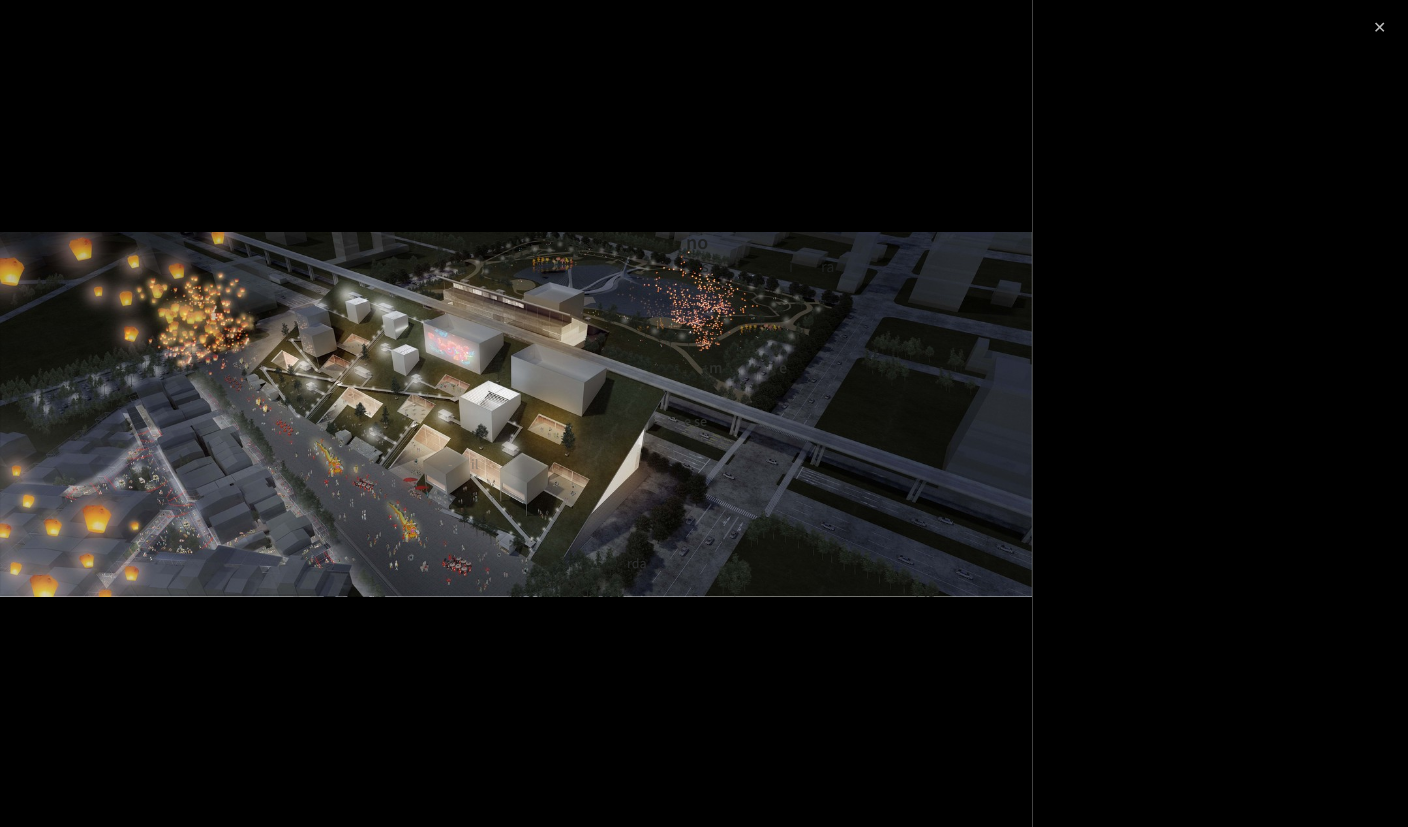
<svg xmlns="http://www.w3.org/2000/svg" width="1408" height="827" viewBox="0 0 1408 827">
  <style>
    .t1 { font: 16px DejaVu Sans; fill: #bbb; }
    .t2 { font: 600 20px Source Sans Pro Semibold; fill: #1f2120; }
    .t3 { font: 16px Source Sans Pro; fill: #1f2120; }
    .t4 { font: 600 16px Source Sans Pro Semibold; fill: #2c2e2a; }
    .t5 { font: 600 14px Source Sans Pro Semibold; fill: #2c2e2a; }
    .t6 { font: 600 14px Source Sans Pro Semibold; fill: #8f8171; }
    .t7 { font: 14px Source Sans Pro; fill: #2f3031; }
  </style>
  <rect width="100%" height="100%" fill="#000"/>
  <rect x="1032" y="0" width="1" height="827" fill="#444"/>
  <text x="1373" y="33" class="t1">✕</text>
  <image x="0" y="232" width="1032" height="365" href="images/1.png"/>
  <text x="686" y="249" class="t2">no</text>
  <text x="702" y="272" class="t3">s</text>
  <text x="789" y="272" class="t3">i</text>
  <text x="821" y="272" class="t3">ra</text>
  <text x="709" y="373" class="t4">m</text>
  <text x="779" y="373" class="t4">e</text>
  <text x="684" y="426" class="t5">e se</text>
  <text x="448" y="469" class="t6">-</text>
  <text x="471" y="469" class="t6">il</text>
  <text x="627" y="568" class="t7">rda</text>
</svg>
